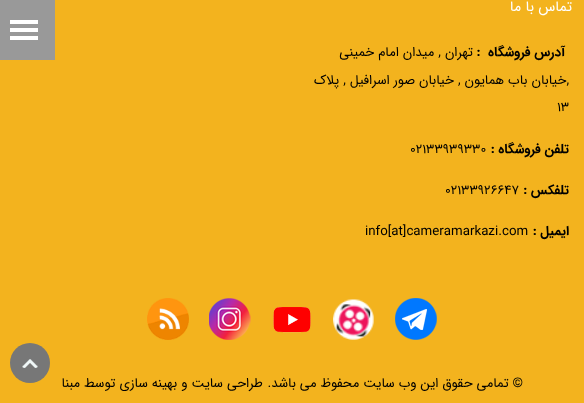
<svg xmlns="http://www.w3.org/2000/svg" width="584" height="403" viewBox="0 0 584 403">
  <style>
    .t1 { font: 14.5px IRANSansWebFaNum; direction: rtl; fill: #fff; }
    .t2 { font: bold 13.3px IRANSansWebFaNum; direction: rtl; fill: #000; }
    .t3 { font: 13.3px IRANSansWebFaNum; direction: rtl; fill: #000; }
    .t4 { font: 13.3px IRANSansWebFaNum; fill: #000; }
  </style>
  <rect width="100%" height="100%" fill="#f3b31e"/>
  <text x="572" y="11" class="t1">تماس با ما</text>
  <text x="565" y="56" class="t2" xml:space="preserve">آدرس فروشگاه  :</text>
  <text x="473" y="56" class="t3">تهران , میدان امام خمینی</text>
  <text x="569" y="84" class="t3">,خیابان باب همایون , خیابان صور اسرافیل , پلاک</text>
  <text x="557" y="111" class="t4">13</text>
  <text x="569" y="153" class="t2">تلفن فروشگاه :</text>
  <text x="410" y="153" class="t4">02133939330</text>
  <text x="569" y="194" class="t2">تلفکس :</text>
  <text x="445" y="194" class="t4">02133926647</text>
  <text x="569" y="235" class="t2">ایمیل :</text>
  <text x="365" y="235" class="t4">info[at]cameramarkazi.com</text>
  <image x="395" y="298" width="42" height="42" href="images/1.png"/>
  <image x="333" y="299" width="41" height="41" href="images/2.png"/>
  <image x="273" y="307" width="38" height="26" href="images/3.png"/>
  <image x="209" y="298" width="42" height="42" href="images/4.png"/>
  <image x="147" y="298" width="42" height="42" href="images/5.png"/>
  <text x="523" y="387" class="t3">© تمامی حقوق این وب سایت محفوظ می باشد.</text>
  <text x="263" y="387" class="t3">طراحي سايت و بهينه سازي توسط مبنا</text>
  <rect x="0" y="0" width="55" height="60" fill="#999"/>
  <rect x="10" y="20" width="28" height="4" fill="#fff"/>
  <rect x="10" y="28" width="28" height="4" fill="#fff"/>
  <rect x="10" y="36" width="28" height="4" fill="#fff"/>
  <circle cx="30" cy="363" r="20" fill="#777"/>
  <image x="22" y="359" width="16" height="9" href="images/6.png"/>
</svg>
